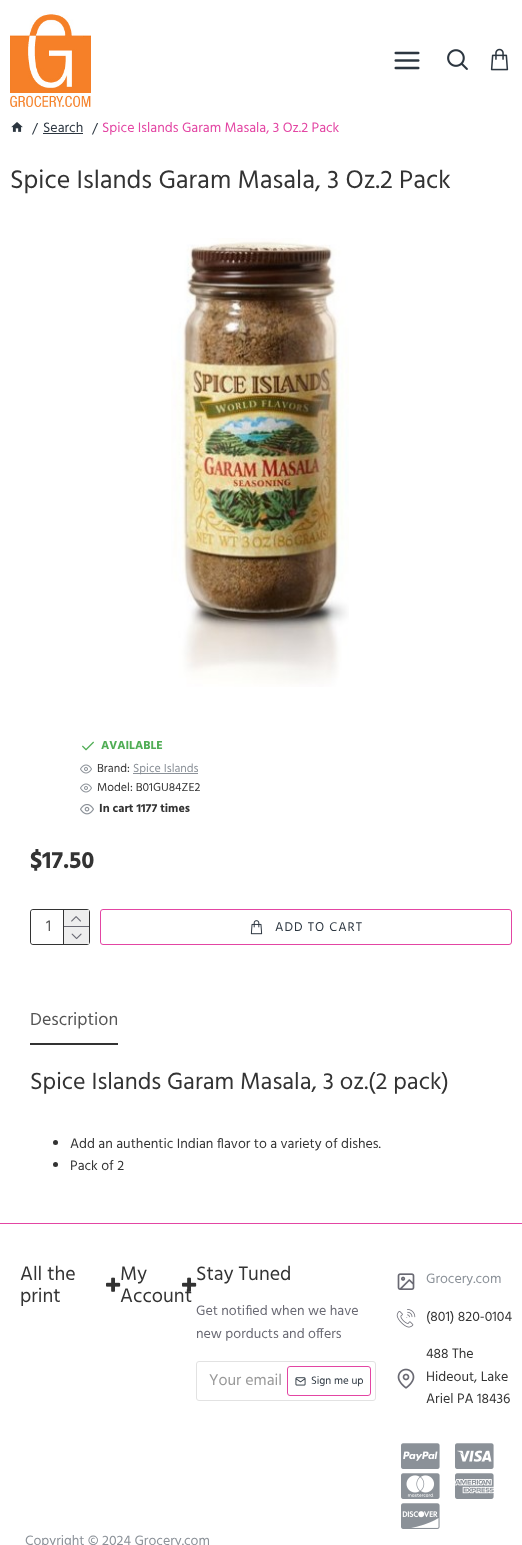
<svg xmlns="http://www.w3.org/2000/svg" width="522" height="1545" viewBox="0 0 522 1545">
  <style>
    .t1 { font: 14px Hind; fill: #2c3640; }
    .t2 { font: 14px Hind; fill: #e345a3; }
    .t3 { font: 26px Hind; fill: #333; }
    .t4 { font: bold 12px Hind; fill: #50ad55; }
    .t5 { font: 12px Hind; fill: #333; }
    .t6 { font: 12px Hind; fill: #8b9198; }
    .t7 { font: bold 12px Hind; fill: #333; }
    .t8 { font: bold 24px Hind; fill: #333; }
    .t9 { font: 16px Hind; fill: #555; }
    .t10 { font: 13px Hind; letter-spacing: 1px; fill: #2c3640; }
    .t11 { font: 18px Hind; fill: #555; }
    .t12 { font: 24px Hind; fill: #333; }
    .t13 { font: 14px Hind; fill: #333; }
    .t14 { font: 20px Hind; fill: #333; }
    .t15 { font: 14px Hind; fill: #696973; }
    .t16 { font: 16px Hind; fill: #999; }
    .t17 { font: 11px Hind; fill: #2c3640; }
    .t18 { font: 14px Hind; fill: #8b9198; }
  </style>
  <rect width="100%" height="100%" fill="#fff"/>
  <image x="10" y="10" width="81" height="97" href="images/1.png"/>
  <image x="394" y="51" width="26" height="19" href="images/2.png"/>
  <image x="447" y="49" width="21" height="21" href="images/3.png"/>
  <image x="490" y="48" width="19" height="23" href="images/4.png"/>
  <image x="11" y="122" width="12" height="10" href="images/5.png"/>
  <text x="32" y="133" class="t1">/</text>
  <text x="43" y="132" class="t1">Search</text>
  <rect x="43" y="133" width="40" height="1" fill="#2c3640"/>
  <text x="92" y="133" class="t1">/</text>
  <text x="102" y="132" class="t2">Spice Islands Garam Masala, 3 Oz.2 Pack</text>
  <text x="10" y="188" class="t3">Spice Islands Garam Masala, 3 Oz.2 Pack</text>
  <image x="171" y="238" width="178" height="449" href="images/6.png"/>
  <image x="82" y="741" width="12" height="10" href="images/7.png"/>
  <text x="101" y="749" class="t4">AVAILABLE</text>
  <image x="80" y="764" width="12" height="10" href="images/8.png"/>
  <text x="97" y="772" class="t5">Brand:</text>
  <rect x="133" y="773" width="65" height="1" fill="#8b9198"/>
  <text x="133" y="772" class="t6">Spice Islands</text>
  <image x="80" y="783" width="12" height="10" href="images/8.png"/>
  <text x="97" y="791" class="t5">Model: B01GU84ZE2</text>
  <image x="80" y="804" width="14" height="11" href="images/9.png"/>
  <text x="99" y="812" class="t7">In cart 1177 times</text>
  <text x="30" y="868" class="t8">$17.50</text>
  <rect x="30.5" y="909.5" width="59" height="35" rx="2.5" fill="none" stroke="#333"/>
  <rect x="31" y="910" width="58" height="34" rx="3" fill="#fff"/>
  <text x="46" y="931" class="t9">1</text>
  <rect x="63" y="910" width="1" height="34" fill="#333"/>
  <rect x="64" y="910" width="25" height="16" fill="#eee"/>
  <rect x="64" y="926" width="25" height="1" fill="#696973"/>
  <image x="71" y="916" width="10" height="6" href="images/10.png"/>
  <rect x="64" y="927" width="25" height="17" fill="#eee"/>
  <image x="71" y="933" width="11" height="7" href="images/11.png"/>
  <rect x="100.5" y="909.5" width="411" height="35" rx="2.5" fill="none" stroke="#e345a3"/>
  <image x="250" y="920" width="13" height="15" href="images/12.png"/>
  <text x="275" y="931" class="t10">ADD TO CART</text>
  <rect x="30" y="1043" width="88" height="2" fill="#333"/>
  <text x="30" y="1025" class="t11">Description</text>
  <text x="30" y="1089" class="t12">Spice Islands Garam Masala, 3 oz.(2 pack)</text>
  <circle cx="55.5" cy="1142.5" r="2.5" fill="#333"/>
  <text x="70" y="1148" class="t13">Add an authentic Indian flavor to a variety of dishes.</text>
  <circle cx="55.5" cy="1164.5" r="2.5" fill="#333"/>
  <text x="70" y="1170" class="t13">Pack of 2</text>
  <rect x="0" y="1223" width="522" height="1" fill="#e345a3"/>
  <text x="20" y="1280" class="t14">All the</text>
  <image x="106" y="1277" width="15" height="15" href="images/13.png"/>
  <text x="20" y="1302" class="t14">print</text>
  <text x="120" y="1280" class="t14">My</text>
  <text x="120" y="1302" class="t14">Account</text>
  <image x="182" y="1277" width="15" height="15" href="images/14.png"/>
  <text x="196" y="1280" class="t14">Stay Tuned</text>
  <text x="196" y="1315" class="t15">Get notified when we have</text>
  <text x="196" y="1338" class="t15">new porducts and offers</text>
  <rect x="196.5" y="1361.5" width="179" height="39" rx="2.5" fill="none" stroke="#e2e2e2"/>
  <text x="209" y="1385" class="t16">Your email</text>
  <rect x="287.5" y="1366.5" width="83" height="29" rx="2.5" fill="none" stroke="#e345a3"/>
  <image x="295" y="1377" width="11" height="9" href="images/15.png"/>
  <text x="311" y="1384" class="t17">Sign me up</text>
  <image x="397" y="1273" width="18" height="17" href="images/16.png"/>
  <text x="426" y="1283" class="t18">Grocery.com</text>
  <image x="396" y="1309" width="20" height="19" href="images/17.png"/>
  <text x="426" y="1321" class="t13">(801) 820-0104</text>
  <image x="397" y="1368" width="18" height="21" href="images/18.png"/>
  <text x="426" y="1358" class="t13">488 The</text>
  <text x="426" y="1381" class="t13">Hideout, Lake</text>
  <text x="426" y="1403" class="t13">Ariel PA 18436</text>
  <image x="401" y="1443" width="39" height="26" href="images/19.png"/>
  <image x="455" y="1443" width="39" height="26" href="images/20.png"/>
  <image x="401" y="1473" width="39" height="26" href="images/21.png"/>
  <image x="455" y="1473" width="39" height="26" href="images/22.png"/>
  <image x="401" y="1503" width="39" height="26" href="images/23.png"/>
  <text x="25" y="1545" class="t18">Copyright © 2024 Grocery.com</text>
</svg>
